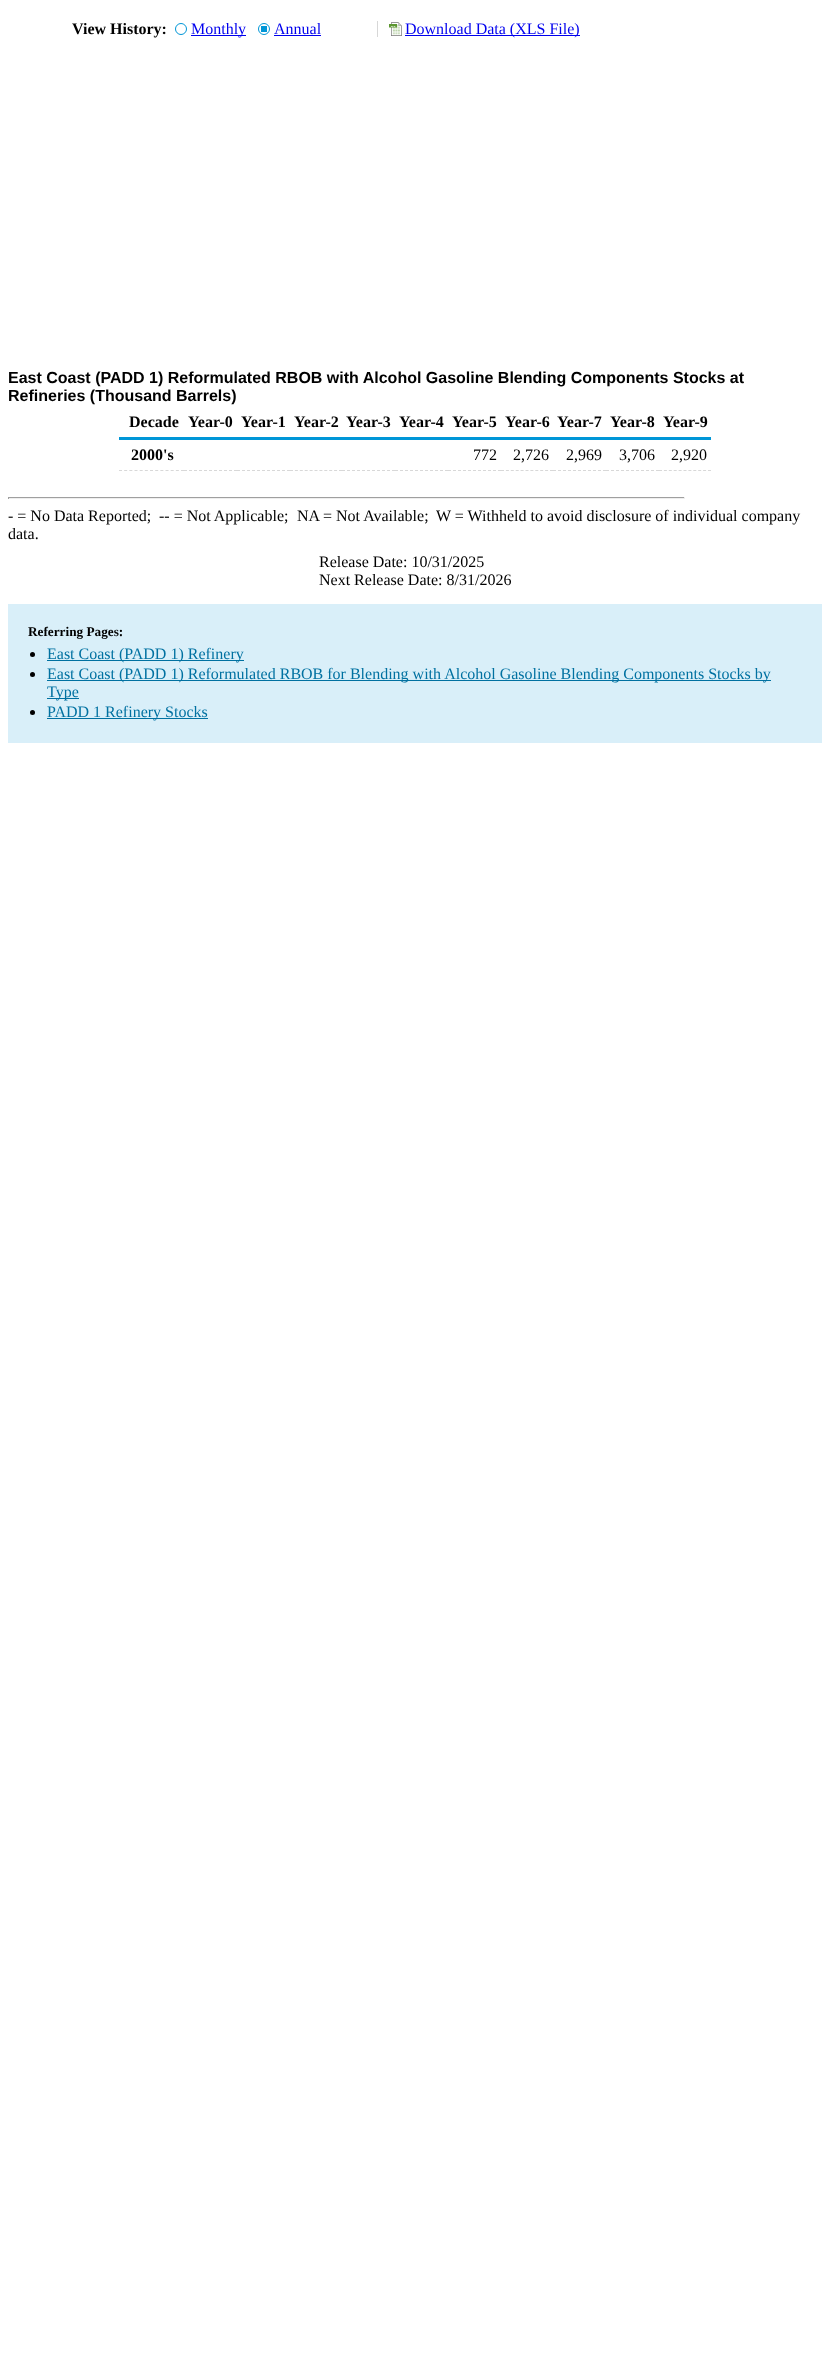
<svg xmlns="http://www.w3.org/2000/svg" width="830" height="2360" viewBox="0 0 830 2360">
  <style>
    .t1 { font: bold 16px Liberation Serif; fill: #000; }
    .t2 { font: 16px Liberation Serif; fill: #00e; }
    .t3 { font: bold 16px Liberation Sans; fill: #000; }
    .t4 { font: 16px Liberation Serif; fill: #000; }
    .t5 { font: bold 13.25px Liberation Serif; fill: #000; }
    .t6 { font: 16px Liberation Serif; fill: #0071a1; }
  </style>
  <rect width="100%" height="100%" fill="#fff"/>
  <text x="72" y="34" class="t1">View History:</text>
  <circle cx="181" cy="29" r="5.5" fill="none" stroke="#0096d7"/>
  <rect x="191" y="35" width="55" height="1" fill="#00e"/>
  <text x="191" y="34" class="t2">Monthly</text>
  <rect x="261" y="26" width="6" height="6" fill="#0096d7"/>
  <circle cx="264" cy="29" r="5.5" fill="none" stroke="#0096d7"/>
  <text x="274" y="34" class="t2">Annual</text>
  <rect x="274" y="35" width="47" height="1" fill="#00e"/>
  <rect x="377" y="21" width="1" height="16" fill="#d7d7d7"/>
  <image x="389" y="22" width="13" height="14" href="images/1.png"/>
  <rect x="405" y="35" width="175" height="1" fill="#00e"/>
  <text x="405" y="34" class="t2">Download Data (XLS File)</text>
  <text x="8" y="383" class="t3">East Coast (PADD 1) Reformulated RBOB with Alcohol Gasoline Blending Components Stocks at</text>
  <text x="8" y="401" class="t3">Refineries (Thousand Barrels)</text>
  <rect x="119" y="437" width="592" height="3" fill="#0096d7"/>
  <text x="129" y="427" class="t1">Decade</text>
  <text x="188" y="427" class="t1">Year-0</text>
  <text x="241" y="427" class="t1">Year-1</text>
  <text x="294" y="427" class="t1">Year-2</text>
  <text x="346" y="427" class="t1">Year-3</text>
  <text x="399" y="427" class="t1">Year-4</text>
  <text x="452" y="427" class="t1">Year-5</text>
  <text x="505" y="427" class="t1">Year-6</text>
  <text x="557" y="427" class="t1">Year-7</text>
  <text x="610" y="427" class="t1">Year-8</text>
  <text x="663" y="427" class="t1">Year-9</text>
  <path d="M119 470.5H184" fill="none" stroke="#d8d8d8" stroke-dasharray="3 2.17"/>
  <text x="131" y="460" class="t1">2000's</text>
  <path d="M448 470.5H501" fill="none" stroke="#d8d8d8" stroke-dasharray="3 2"/>
  <text x="473" y="460" class="t4">772</text>
  <path d="M501 470.5H553" fill="none" stroke="#d8d8d8" stroke-dasharray="3 1.9"/>
  <text x="513" y="460" class="t4">2,726</text>
  <path d="M553 470.5H606" fill="none" stroke="#d8d8d8" stroke-dasharray="3 2"/>
  <text x="566" y="460" class="t4">2,969</text>
  <path d="M606 470.5H659" fill="none" stroke="#d8d8d8" stroke-dasharray="3 2"/>
  <text x="619" y="460" class="t4">3,706</text>
  <path d="M659 470.5H711" fill="none" stroke="#d8d8d8" stroke-dasharray="3 1.9"/>
  <text x="671" y="460" class="t4">2,920</text>
  <path d="M184 470.5H237" fill="none" stroke="#d8d8d8" stroke-dasharray="3 2"/>
  <path d="M237 470.5H290" fill="none" stroke="#d8d8d8" stroke-dasharray="3 2"/>
  <path d="M290 470.5H342" fill="none" stroke="#d8d8d8" stroke-dasharray="3 1.9"/>
  <path d="M342 470.5H395" fill="none" stroke="#d8d8d8" stroke-dasharray="3 2"/>
  <path d="M395 470.5H448" fill="none" stroke="#d8d8d8" stroke-dasharray="3 2"/>
  <rect x="8" y="497" width="677" height="1" fill="#9f9f9f"/>
  <rect x="684" y="497" width="1" height="2" fill="#eee"/>
  <rect x="8" y="498" width="677" height="1" fill="#eee"/>
  <rect x="8" y="497" width="1" height="2" fill="#9f9f9f"/>
  <text x="8" y="521" class="t4">- = No Data Reported;</text>
  <text x="159" y="521" class="t4">-- = Not Applicable;</text>
  <text x="297" y="521" class="t4">NA</text>
  <text x="323" y="521" class="t4">= Not Available;</text>
  <text x="436" y="521" class="t4">W = Withheld to avoid disclosure of individual company</text>
  <text x="8" y="539" class="t4">data.</text>
  <text x="319" y="567" class="t4">Release Date: 10/31/2025</text>
  <text x="319" y="585" class="t4">Next Release Date: 8/31/2026</text>
  <rect x="8" y="604" width="814" height="139" fill="#d9eff9"/>
  <text x="28" y="636" class="t5">Referring Pages:</text>
  <circle cx="32.5" cy="654.5" r="2.5" fill="#000"/>
  <rect x="47" y="660" width="197" height="1" fill="#0071a1"/>
  <text x="47" y="659" class="t6">East Coast (PADD 1) Refinery</text>
  <circle cx="32.5" cy="674.5" r="2.5" fill="#000"/>
  <rect x="47" y="680" width="724" height="1" fill="#0071a1"/>
  <text x="47" y="679" class="t6">East Coast (PADD 1) Reformulated RBOB for Blending with Alcohol Gasoline Blending Components Stocks by</text>
  <rect x="47" y="698" width="32" height="1" fill="#0071a1"/>
  <text x="47" y="697" class="t6">Type</text>
  <circle cx="32.5" cy="712.5" r="2.5" fill="#000"/>
  <rect x="47" y="718" width="161" height="1" fill="#0071a1"/>
  <text x="47" y="717" class="t6">PADD 1 Refinery Stocks</text>
</svg>
